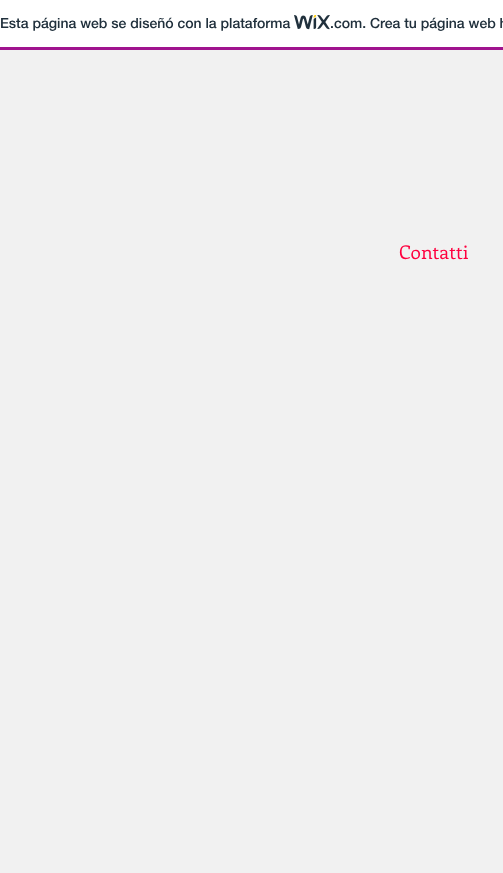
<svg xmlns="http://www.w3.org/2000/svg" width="503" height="873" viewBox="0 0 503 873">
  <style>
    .t1 { font: 500 14px 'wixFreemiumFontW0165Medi'; fill: #20303c; }
    .t2 { font: 19px Enriqueta; fill: #ff003f; }
  </style>
  <rect width="100%" height="100%" fill="#fff"/>
  <rect x="0" y="47" width="503" height="3" fill="#a0138e"/>
  <text x="0" y="28" class="t1">Esta página web se diseñó con la plataforma</text>
  <image x="294" y="15" width="36" height="15" href="images/1.png"/>
  <text x="330" y="28" class="t1">.com. Crea tu página web h</text>
  <rect x="0" y="50" width="503" height="823" fill="#f1f1f1"/>
  <text x="399" y="259" class="t2">Contatti</text>
</svg>
